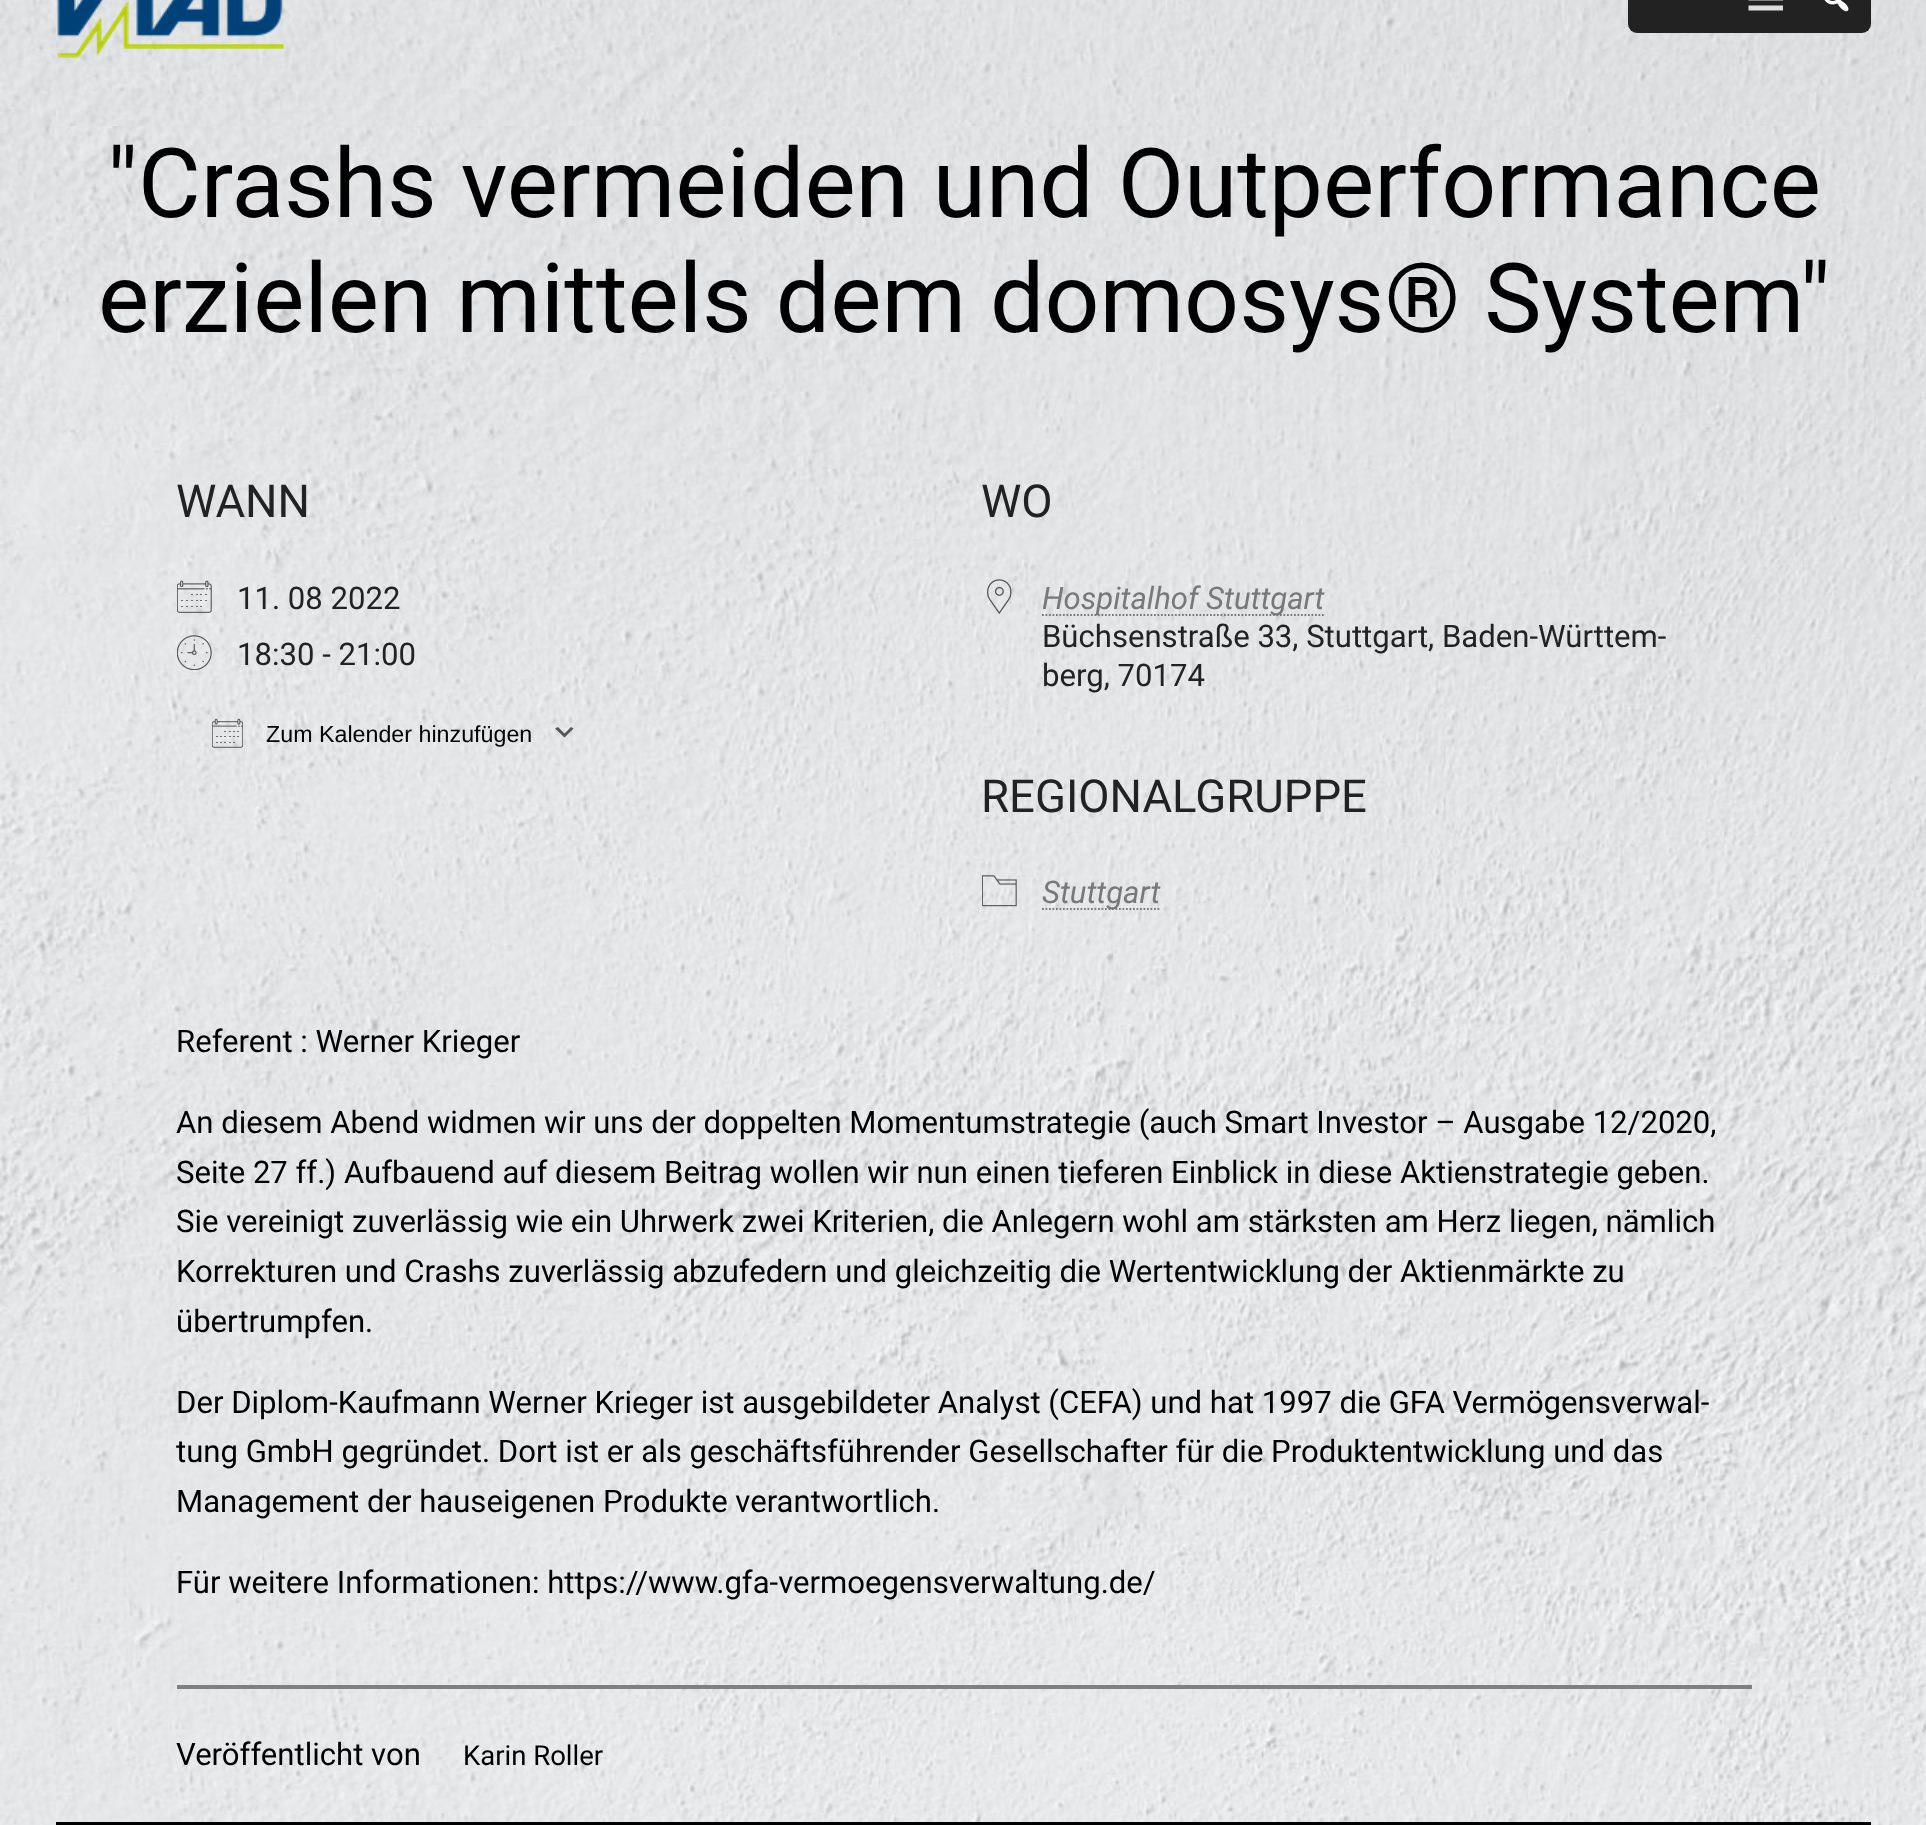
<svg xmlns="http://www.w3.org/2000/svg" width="1926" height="1825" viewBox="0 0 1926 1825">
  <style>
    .t1 { font: 96.5px Roboto; fill: #000; }
    .t2 { font: 45.5px Roboto; fill: #222; }
    .t3 { font: 31.1px Roboto; fill: #222; }
    .t4 { font: 23.25px Liberation Sans; fill: #000; }
    .t5 { font: italic 31.1px Roboto; fill: #787878; }
    .t6 { font: 31.1px Roboto; fill: #000; }
    .t7 { font: 27.5px Roboto; fill: #000; }
  </style>
  <rect width="100%" height="100%" fill="#fff"/>
  <image x="0" y="0" width="1926" height="1825" href="images/1.png"/>
  <image x="56" y="0" width="1815" height="126" href="images/2.png"/>
  <image x="57" y="0" width="227" height="58" href="images/3.png"/>
  <rect x="1628" y="-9" width="243" height="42" rx="9" fill="#222"/>
  <path d="M1748.5 10.5H1783V5.5H1748.5ZM1748.5-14V-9H1783V-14ZM1748.5 .5H1783V-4H1748.5Z" fill="#ddd"/>
  <image x="1824" y="0" width="25" height="12" href="images/4.png"/>
  <text x="107" y="217" class="t1">"Crashs vermeiden und Outperformance</text>
  <text x="98" y="332" class="t1">erzielen mittels dem domosys® System"</text>
  <text x="176" y="517" class="t2">WANN</text>
  <image x="177" y="580" width="35" height="33" href="images/5.png"/>
  <text x="237" y="609" class="t3">11. 08 2022</text>
  <image x="177" y="635" width="35" height="35" href="images/6.png"/>
  <text x="237" y="665" class="t3">18:30 - 21:00</text>
  <path d="M558 727L564.5 733.5L571 727L573.5 728.5L564.5 737.5L555 728.5Z" fill="#555"/>
  <image x="212" y="718" width="31" height="30" href="images/7.png"/>
  <text x="266" y="742" class="t4">Zum Kalender hinzufügen</text>
  <text x="981" y="517" class="t2">WO</text>
  <image x="987" y="579" width="25" height="35" href="images/8.png"/>
  <path d="M1042 615H1324.5" fill="none" stroke="#787878" stroke-width="1.8" stroke-dasharray="1.75 1.75"/>
  <text x="1042" y="609" class="t5">Hospitalhof Stuttgart</text>
  <text x="1042" y="647" class="t3">Büchsenstraße 33, Stuttgart, Baden-Württem-</text>
  <text x="1042" y="686" class="t3">berg, 70174</text>
  <text x="981" y="812" class="t2">REGIONALGRUPPE</text>
  <image x="982" y="875" width="35" height="32" href="images/9.png"/>
  <path d="M1042 909H1160.5" fill="none" stroke="#787878" stroke-width="1.8" stroke-dasharray="1.75 1.75"/>
  <text x="1042" y="903" class="t5">Stuttgart</text>
  <text x="176" y="1052" class="t6">Referent : Werner Krieger</text>
  <text x="176" y="1133" class="t6">An diesem Abend widmen wir uns der doppelten Momentumstrategie (auch Smart Investor – Ausgabe 12/2020,</text>
  <text x="176" y="1183" class="t6">Seite 27 ff.) Aufbauend auf diesem Beitrag wollen wir nun einen tieferen Einblick in diese Aktienstrategie geben.</text>
  <text x="176" y="1232" class="t6">Sie vereinigt zuverlässig wie ein Uhrwerk zwei Kriterien, die Anlegern wohl am stärksten am Herz liegen, nämlich</text>
  <text x="176" y="1282" class="t6">Korrekturen und Crashs zuverlässig abzufedern und gleichzeitig die Wertentwicklung der Aktienmärkte zu</text>
  <text x="176" y="1332" class="t6">übertrumpfen.</text>
  <text x="176" y="1413" class="t6">Der Diplom-Kaufmann Werner Krieger ist ausgebildeter Analyst (CEFA) und hat 1997 die GFA Vermögensverwal-</text>
  <text x="176" y="1462" class="t6">tung GmbH gegründet. Dort ist er als geschäftsführender Gesellschafter für die Produktentwicklung und das</text>
  <text x="176" y="1512" class="t6">Management der hauseigenen Produkte verantwortlich.</text>
  <text x="176" y="1593" class="t6">Für weitere Informationen: https://www.gfa-vermoegensverwaltung.de/</text>
  <rect x="177" y="1685" width="1575" height="4" fill="#808080"/>
  <text x="176" y="1765" class="t6">Veröffentlicht von</text>
  <text x="463" y="1765" class="t7">Karin Roller</text>
  <rect x="56" y="1822" width="1815" height="3" fill="#000"/>
</svg>
